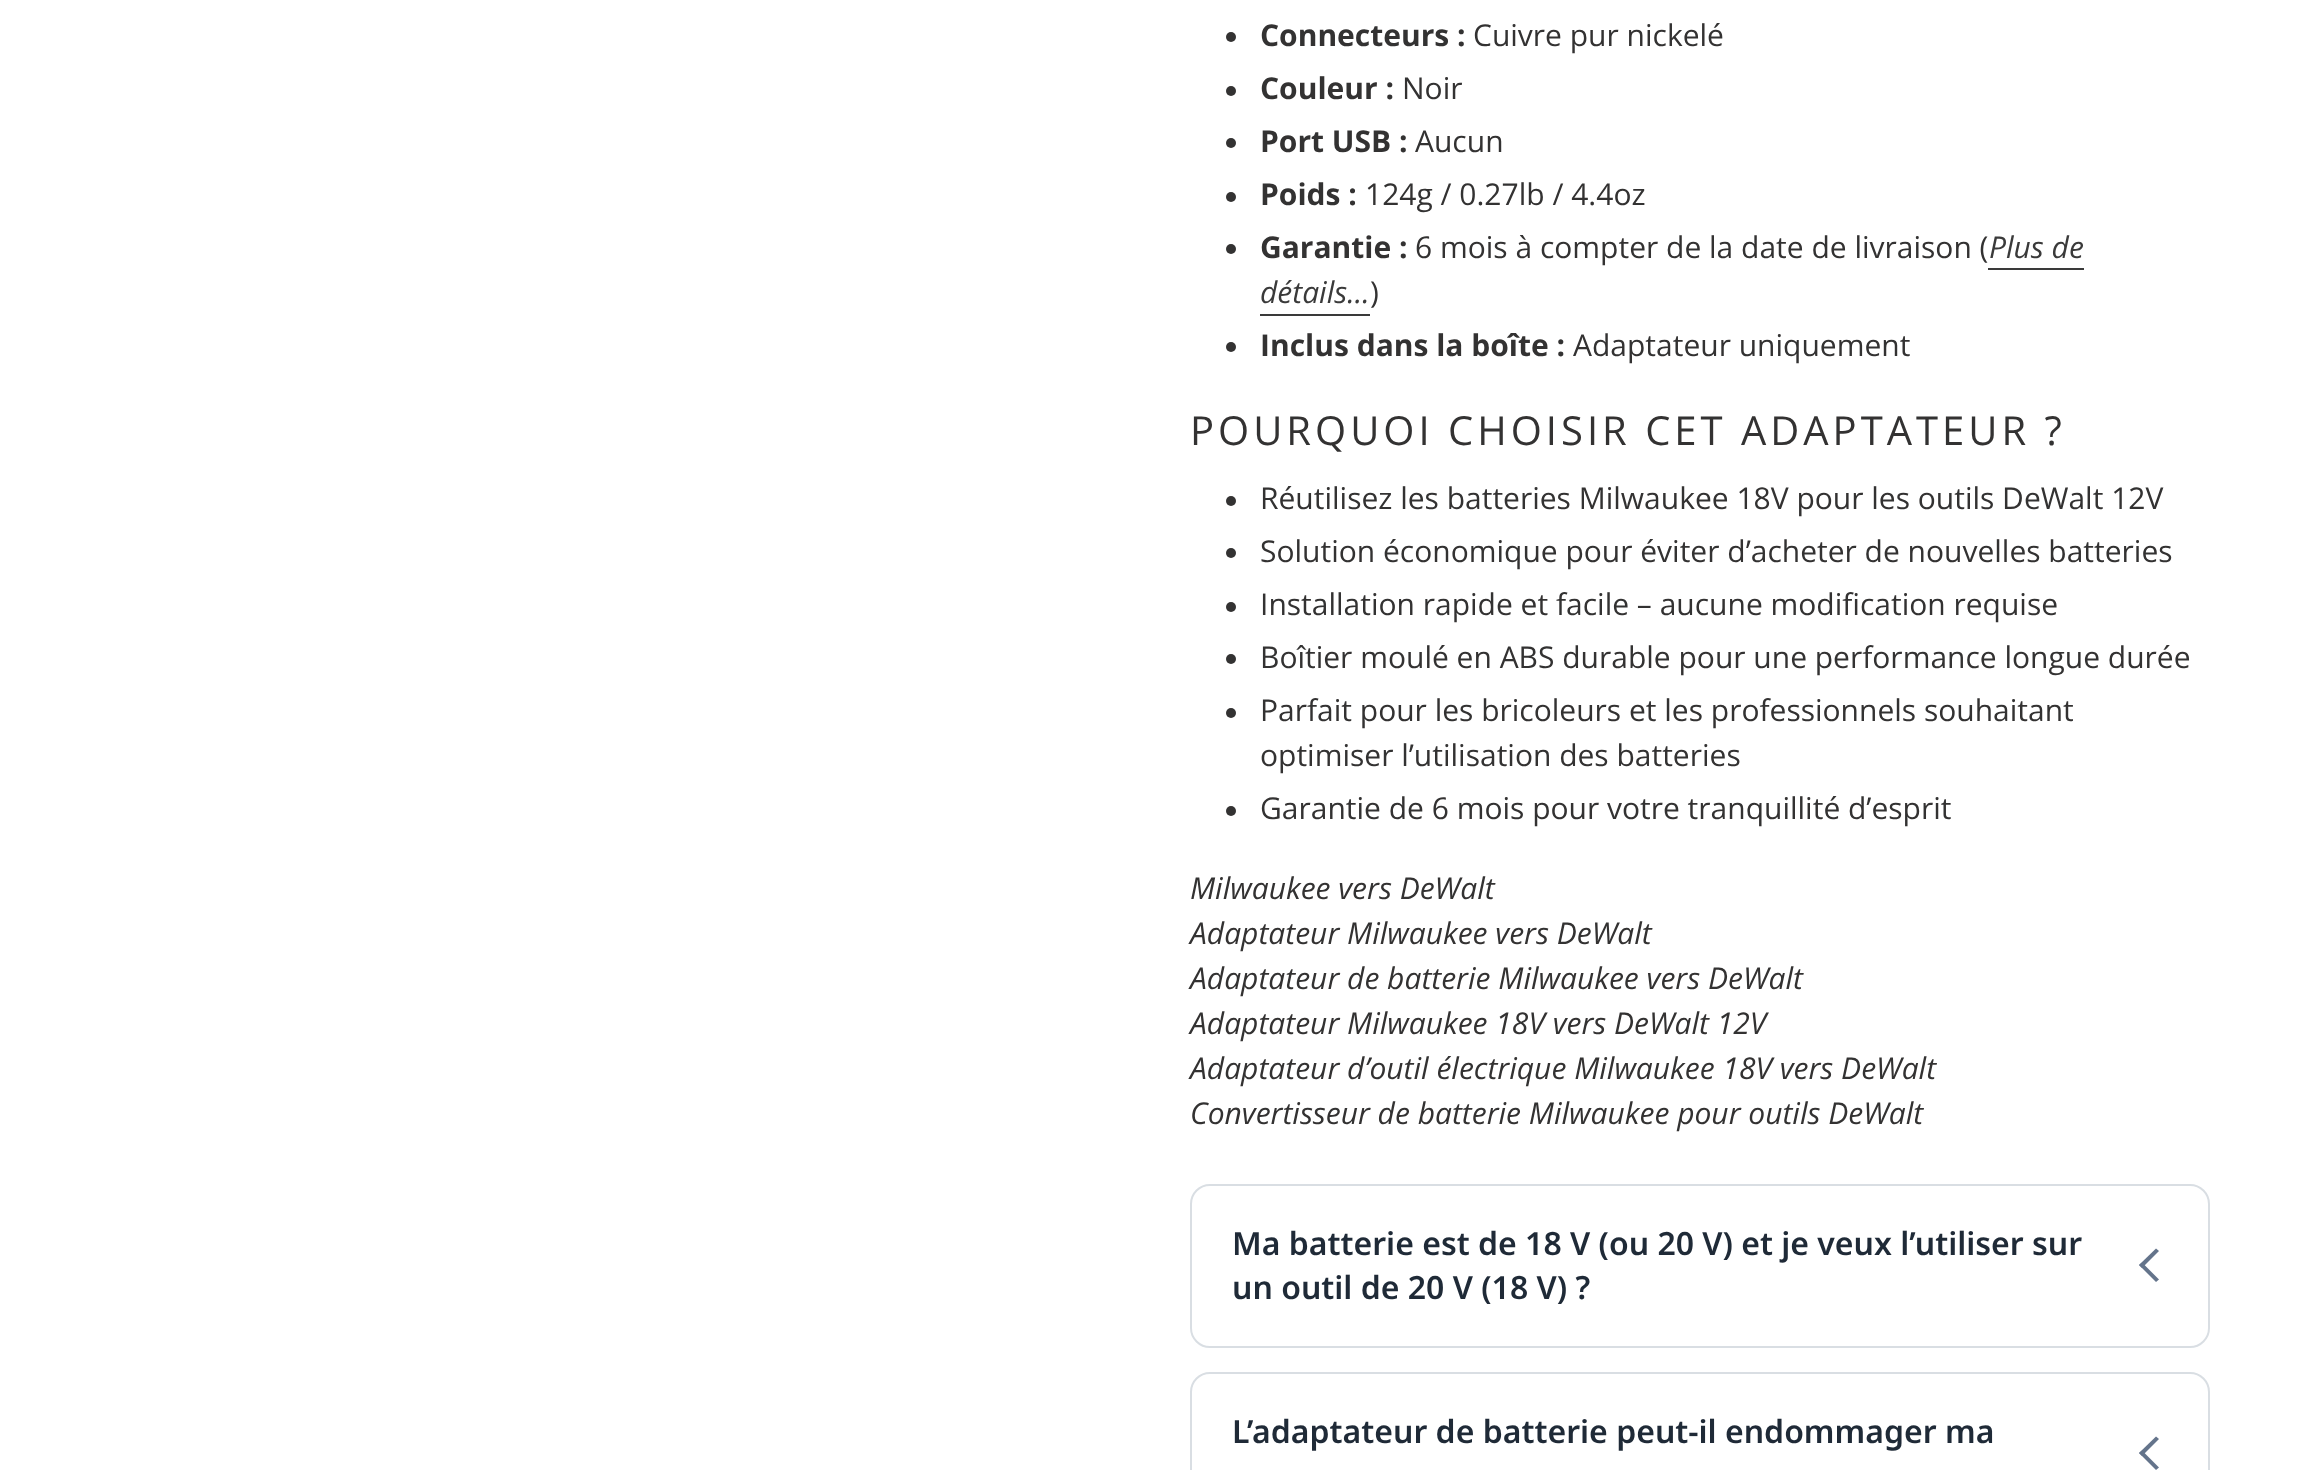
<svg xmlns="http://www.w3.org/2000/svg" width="2320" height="1470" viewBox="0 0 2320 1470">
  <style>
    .t1 { font: bold 30px Open Sans; fill: #333232; }
    .t2 { font: 30px Open Sans; fill: #333232; }
    .t3 { font: italic 30px Open Sans; fill: #3a3a3a; }
    .t4 { font: 40px Open Sans; letter-spacing: 4px; fill: #333232; }
    .t5 { font: italic 30px Open Sans; fill: #333232; }
    .t6 { font: 600 32px Noto Sans; fill: #1f2a37; }
  </style>
  <rect width="100%" height="100%" fill="#fff"/>
  <circle cx="1231" cy="37" r="5" fill="#333232"/>
  <text x="1260" y="46" class="t1">Connecteurs :</text>
  <text x="1473" y="46" class="t2">Cuivre pur nickelé</text>
  <circle cx="1231" cy="91" r="5" fill="#333232"/>
  <text x="1260" y="99" class="t1">Couleur :</text>
  <text x="1402" y="99" class="t2">Noir</text>
  <circle cx="1231" cy="143" r="5" fill="#333232"/>
  <text x="1260" y="152" class="t1">Port USB :</text>
  <text x="1415" y="152" class="t2">Aucun</text>
  <circle cx="1231" cy="197" r="5" fill="#333232"/>
  <text x="1260" y="205" class="t1">Poids :</text>
  <text x="1365" y="205" class="t2">124g / 0.27lb / 4.4oz</text>
  <circle cx="1231" cy="249" r="5" fill="#333232"/>
  <text x="1260" y="258" class="t1">Garantie :</text>
  <text x="1415" y="258" class="t2">6 mois à compter de la date de livraison (</text>
  <text x="1989" y="258" class="t3">Plus de</text>
  <rect x="1988" y="268" width="96" height="2" fill="#3a3a3a"/>
  <text x="1260" y="303" class="t3">détails...</text>
  <rect x="1260" y="314" width="110" height="2" fill="#3a3a3a"/>
  <text x="1370" y="303" class="t2">)</text>
  <circle cx="1231" cy="347" r="5" fill="#333232"/>
  <text x="1260" y="356" class="t1">Inclus dans la boîte :</text>
  <text x="1573" y="356" class="t2">Adaptateur uniquement</text>
  <text x="1190" y="445" class="t4">POURQUOI CHOISIR CET ADAPTATEUR ?</text>
  <circle cx="1231" cy="501" r="5" fill="#333232"/>
  <text x="1260" y="509" class="t2">Réutilisez les batteries Milwaukee 18V pour les outils DeWalt 12V</text>
  <circle cx="1231" cy="553" r="5" fill="#333232"/>
  <text x="1260" y="562" class="t2">Solution économique pour éviter d’acheter de nouvelles batteries</text>
  <circle cx="1231" cy="607" r="5" fill="#333232"/>
  <text x="1260" y="615" class="t2">Installation rapide et facile – aucune modification requise</text>
  <circle cx="1231" cy="659" r="5" fill="#333232"/>
  <text x="1260" y="668" class="t2">Boîtier moulé en ABS durable pour une performance longue durée</text>
  <circle cx="1231" cy="713" r="5" fill="#333232"/>
  <text x="1260" y="721" class="t2">Parfait pour les bricoleurs et les professionnels souhaitant</text>
  <text x="1260" y="766" class="t2">optimiser l’utilisation des batteries</text>
  <circle cx="1231" cy="811" r="5" fill="#333232"/>
  <text x="1260" y="819" class="t2">Garantie de 6 mois pour votre tranquillité d’esprit</text>
  <text x="1190" y="899" class="t5">Milwaukee vers DeWalt</text>
  <text x="1190" y="944" class="t5">Adaptateur Milwaukee vers DeWalt</text>
  <text x="1190" y="989" class="t5">Adaptateur de batterie Milwaukee vers DeWalt</text>
  <text x="1190" y="1034" class="t5">Adaptateur Milwaukee 18V vers DeWalt 12V</text>
  <text x="1190" y="1079" class="t5">Adaptateur d’outil électrique Milwaukee 18V vers DeWalt</text>
  <text x="1190" y="1124" class="t5">Convertisseur de batterie Milwaukee pour outils DeWalt</text>
  <rect x="1191" y="1185" width="1018" height="162" rx="19" fill="none" stroke="#d9dee3" stroke-width="2"/>
  <text x="1232" y="1255" class="t6">Ma batterie est de 18 V (ou 20 V) et je veux l’utiliser sur</text>
  <path d="M2159 1279.5L2156 1282L2139 1265L2142 1262.5Z" fill="#64748b"/>
  <path d="M2159 1251L2142 1268L2139 1265L2156 1248.5Z" fill="#64748b"/>
  <text x="1232" y="1299" class="t6">un outil de 20 V (18 V) ?</text>
  <rect x="1191" y="1373" width="1018" height="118" rx="19" fill="none" stroke="#d9dee3" stroke-width="2"/>
  <text x="1232" y="1443" class="t6">L’adaptateur de batterie peut-il endommager ma</text>
  <path d="M2159 1467.5L2156 1470L2139 1453L2142 1450.5Z" fill="#64748b"/>
  <path d="M2159 1439L2142 1456L2139 1453L2156 1436.5Z" fill="#64748b"/>
</svg>
